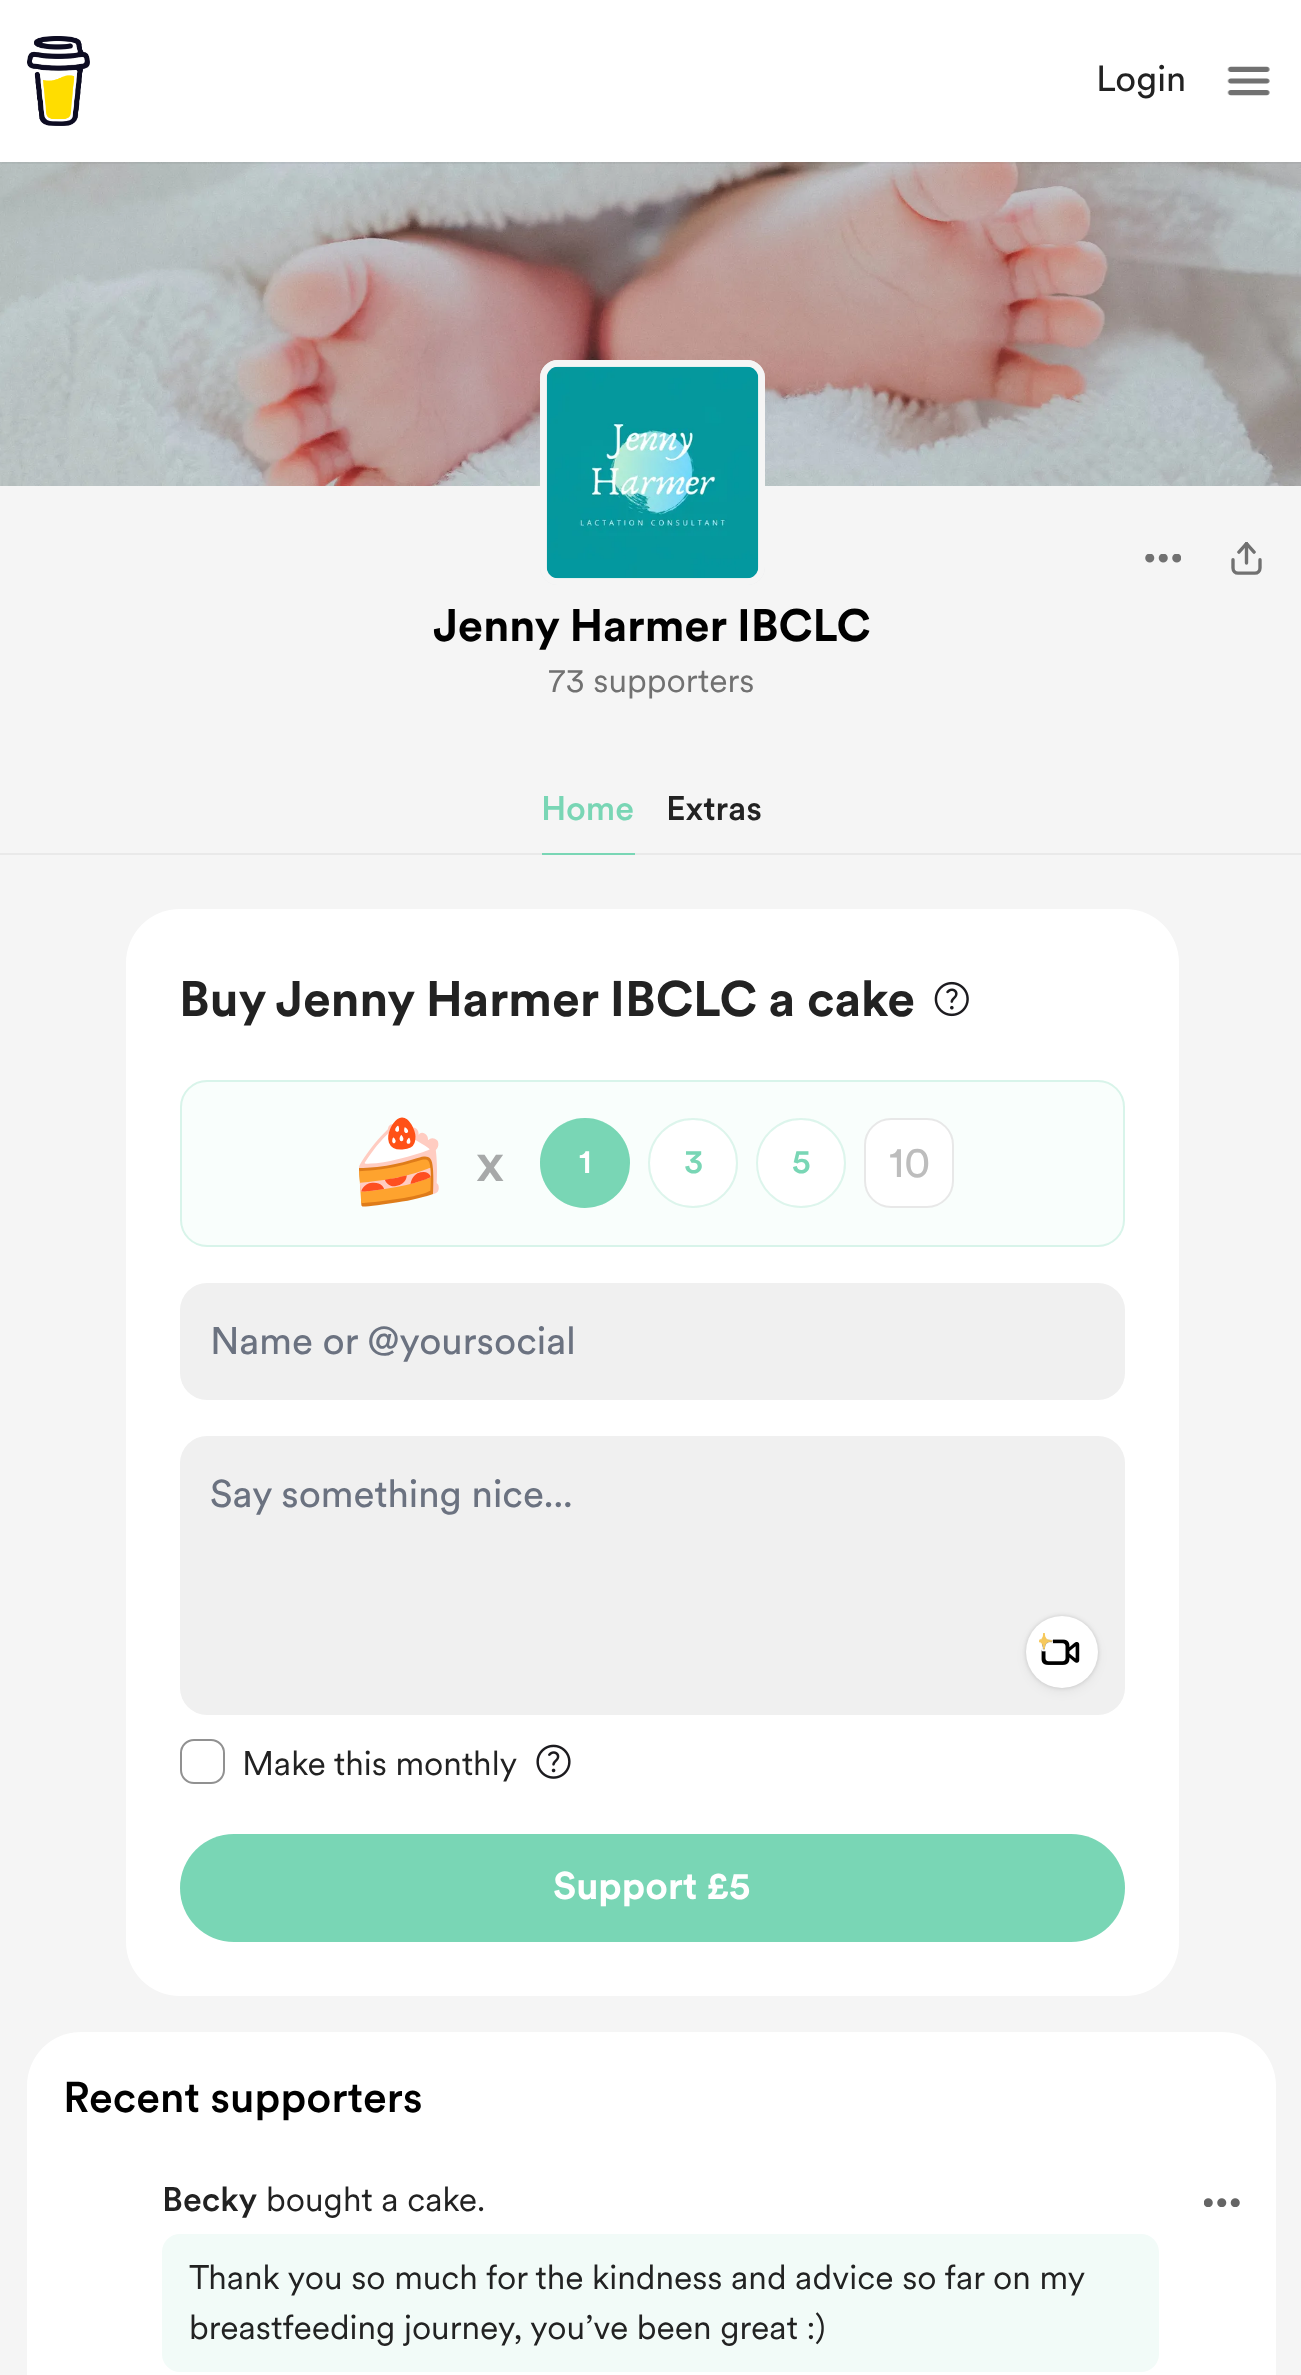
<svg xmlns="http://www.w3.org/2000/svg" width="1301" height="2375" viewBox="0 0 1301 2375">
  <style>
    .t1 { font: 36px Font; fill: #222; }
    .t2 { font: bold 45px Font; fill: #000; }
    .t3 { font: 33.75px 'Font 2'; fill: #717171; }
    .t4 { font: 500 33.75px Font; fill: #79d6b5; }
    .t5 { font: 500 33.75px Font; fill: #222; }
    .t6 { font: bold 49.5px Font; fill: #222; }
    .t7 { font: 81px Noto Color Emoji; fill: #000; }
    .t8 { font: 500 54px Font; fill: #a7a9a9; }
    .t9 { font: 500 33.75px Font; fill: #fff; }
    .t10 { font: 42.75px Font; fill: #bdbdbd; }
    .t11 { font: 38.25px Font; fill: #6b7280; }
    .t12 { font: 33.75px 'Font 2'; fill: #222; }
    .t13 { font: bold 38.25px Font; fill: #fff; }
    .t14 { font: 500 42.75px Font; fill: #000; }
  </style>
  <defs>
    <clipPath id="clip1"><rect x="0" y="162" width="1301" height="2"/></clipPath>
  </defs>
  <rect width="100%" height="100%" fill="#fff"/>
  <image x="0" y="162" width="1301" height="324" href="images/3.png"/>
  <g clip-path="url(#clip1)">
    <rect x="0" y="2" width="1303" height="162" fill="#0000000f" filter="blur(1px)"/>
  </g>
  <image x="27" y="36" width="63" height="90" href="images/1.png"/>
  <text x="1096" y="91" class="t1">Login</text>
  <image x="1227" y="66" width="43" height="30" href="images/2.png"/>
  <rect x="0" y="486" width="1301" height="1889" fill="#f5f5f5"/>
  <image x="1145" y="554" width="36" height="9" href="images/4.png"/>
  <image x="1231" y="542" width="31" height="33" href="images/5.png"/>
  <image x="540" y="360" width="225" height="225" href="images/6.png"/>
  <rect x="543.5" y="363.5" width="218" height="218" rx="14.5" fill="none" stroke="#f5f5f5" stroke-width="7"/>
  <image x="546" y="366" width="213" height="213" href="images/7.png"/>
  <text x="433" y="641" class="t2">Jenny Harmer IBCLC</text>
  <text x="548" y="692" class="t3">73 supporters</text>
  <text x="541" y="820" class="t4">Home</text>
  <rect x="0" y="853" width="1301" height="2" fill="#e9e9e9"/>
  <rect x="542" y="853" width="93" height="2" fill="#79d6b5"/>
  <text x="666" y="820" class="t5">Extras</text>
  <rect x="126" y="909" width="1053" height="1087" rx="54" fill="#fff"/>
  <text x="179" y="1016" class="t6">Buy Jenny Harmer IBCLC a cake</text>
  <image x="934" y="981" width="35" height="36" href="images/8.png"/>
  <rect x="180" y="1080" width="945" height="167" rx="27" fill="#f9fefc"/>
  <rect x="181" y="1081" width="943" height="165" rx="26" fill="none" stroke="#79d6b540" stroke-width="2"/>
  <text x="348" y="1190" class="t7">🍰</text>
  <text x="476" y="1181" class="t8">x</text>
  <circle cx="585" cy="1163" r="45" fill="#79d6b5"/>
  <circle cx="585" cy="1163" r="44" fill="none" stroke="#79d6b540" stroke-width="2"/>
  <text x="579" y="1173" class="t9">1</text>
  <circle cx="693" cy="1163" r="45" fill="#fff"/>
  <circle cx="693" cy="1163" r="44" fill="none" stroke="#79d6b540" stroke-width="2"/>
  <text x="684" y="1173" class="t4">3</text>
  <circle cx="801" cy="1163" r="45" fill="#fff"/>
  <circle cx="801" cy="1163" r="44" fill="none" stroke="#79d6b540" stroke-width="2"/>
  <text x="792" y="1173" class="t4">5</text>
  <rect x="864" y="1118" width="90" height="90" rx="27" fill="#fff"/>
  <rect x="865" y="1119" width="88" height="88" rx="26" fill="none" stroke="#2222221a" stroke-width="2"/>
  <text x="889" y="1177" class="t10">10</text>
  <rect x="180" y="1283" width="945" height="117" rx="27" fill="#f0f0f0"/>
  <text x="210" y="1354" class="t11">Name or @yoursocial</text>
  <rect x="180" y="1436" width="945" height="279" rx="27" fill="#f0f0f0"/>
  <text x="210" y="1507" class="t11">Say something nice...</text>
  <rect x="1026" y="1620" width="72" height="72" rx="36" fill="#0000000d" filter="blur(5.5px)"/>
  <rect x="1026" y="1616" width="72" height="72" rx="36" fill="#00000026" filter="blur(2px)"/>
  <circle cx="1062" cy="1652" r="36" fill="#fff"/>
  <image x="1041" y="1639" width="39" height="26" href="images/10.png"/>
  <image x="1039" y="1633" width="14" height="19" href="images/9.png"/>
  <rect x="181" y="1740" width="43" height="43" rx="13" fill="none" stroke="#919191" stroke-width="2"/>
  <text x="242" y="1775" class="t12">Make this monthly</text>
  <image x="536" y="1744" width="35" height="35" href="images/11.png"/>
  <rect x="180" y="1834" width="945" height="108" rx="54" fill="#79d6b5"/>
  <text x="553" y="1899" class="t13">Support £5</text>
  <rect x="27" y="2032" width="1249" height="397" rx="54" fill="#fff"/>
  <text x="63" y="2112" class="t14">Recent supporters</text>
  <text x="162" y="2211" class="t5">Becky</text>
  <text x="266" y="2211" class="t12">bought a cake.</text>
  <rect x="162" y="2234" width="997" height="138" rx="18" fill="#f2fbf8"/>
  <text x="189" y="2289" class="t12">Thank you so much for the kindness and advice so far on my</text>
  <text x="189" y="2339" class="t12">breastfeeding journey, you’ve been great :)</text>
  <image x="1204" y="2198" width="36" height="9" href="images/12.png"/>
</svg>
